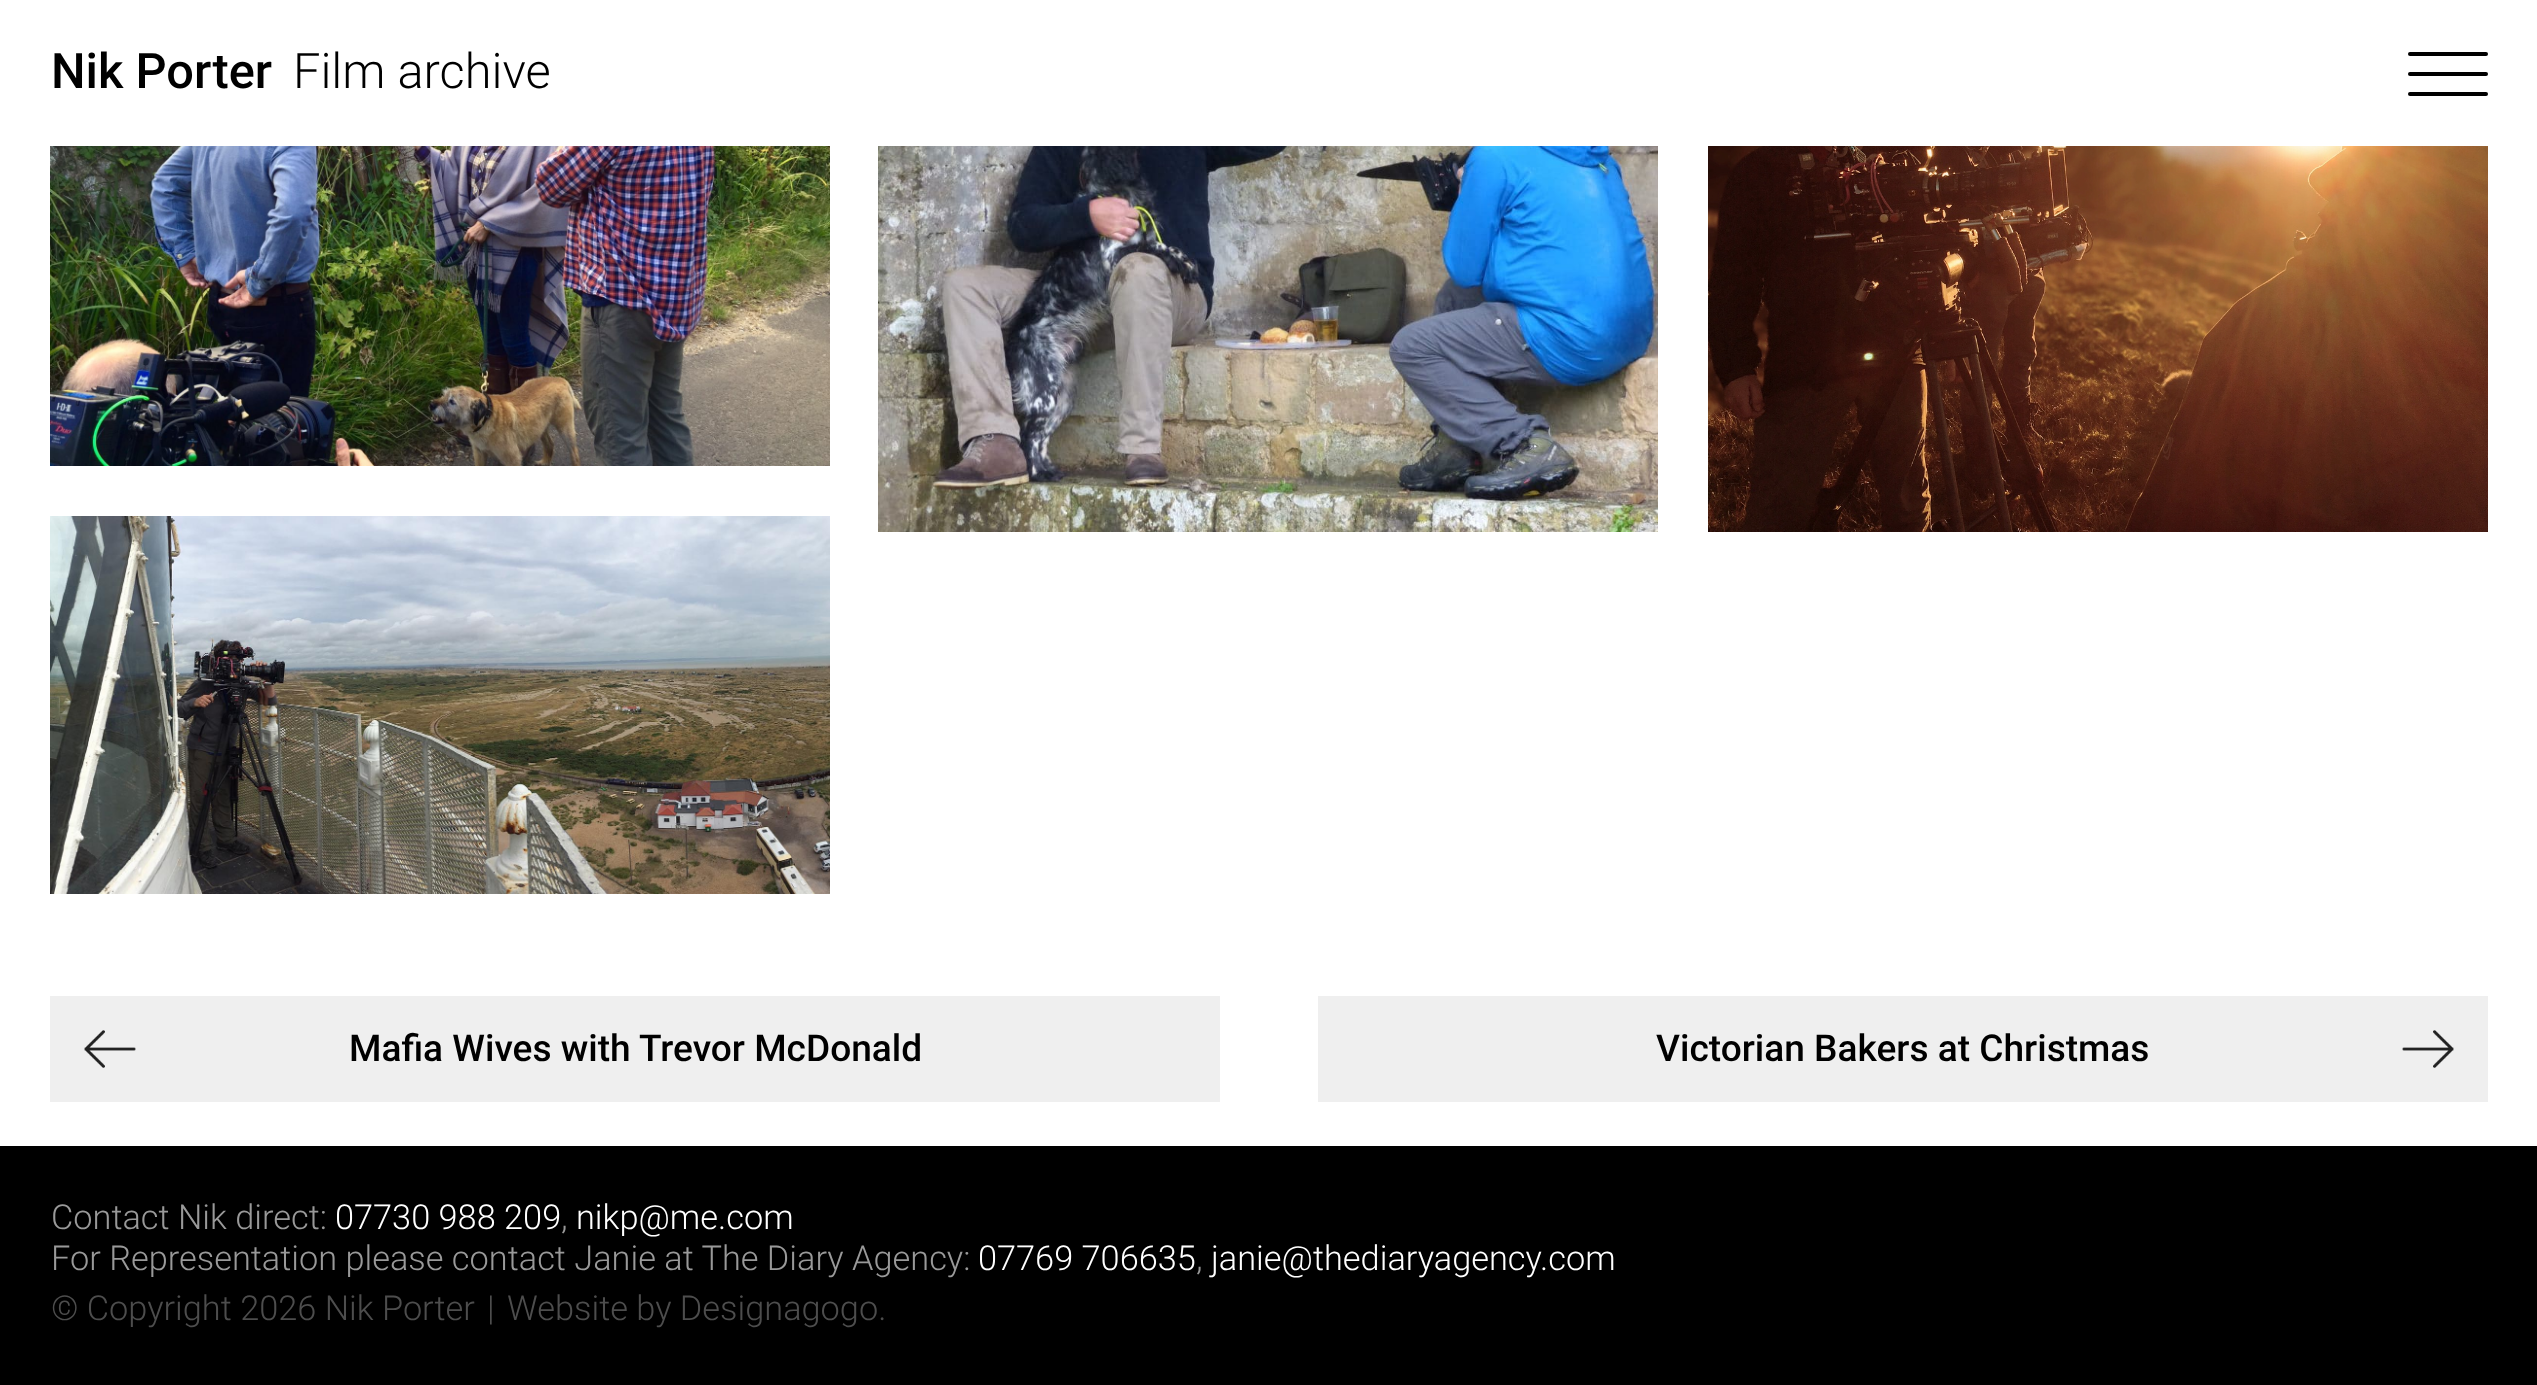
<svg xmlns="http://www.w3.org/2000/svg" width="2537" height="1385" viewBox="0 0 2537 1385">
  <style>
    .t1 { font: 500 48.75px Roboto; fill: #000; }
    .t2 { font: 300 48.75px Roboto; fill: #000; }
    .t3 { font: 500 37.1px Roboto; fill: #000; }
    .t4 { font: 300 34.35px Roboto; fill: #999; }
    .t5 { font: 300 34.35px Roboto; fill: #fff; }
    .t6 { font: 300 34.35px Roboto; fill: #4d4d4d; }
  </style>
  <rect width="100%" height="100%" fill="#fff"/>
  <text x="51" y="88" class="t1">Nik Porter</text>
  <text x="293" y="88" class="t2">Film archive</text>
  <rect x="2408" y="72" width="80" height="4" rx="2" fill="#000"/>
  <rect x="2408" y="52" width="80" height="4" rx="2" fill="#000"/>
  <rect x="2408" y="92" width="80" height="4" rx="2" fill="#000"/>
  <image x="50" y="146" width="780" height="320" href="images/1.png"/>
  <image x="878" y="146" width="780" height="386" href="images/2.png"/>
  <image x="1708" y="146" width="780" height="386" href="images/3.png"/>
  <image x="50" y="516" width="780" height="378" href="images/4.png"/>
  <rect x="50" y="996" width="1170" height="106" fill="#efefef"/>
  <image x="84" y="1030" width="52" height="38" href="images/5.png"/>
  <text x="349" y="1061" class="t3">Mafia Wives with Trevor McDonald</text>
  <rect x="1318" y="996" width="1170" height="106" fill="#efefef"/>
  <text x="1656" y="1061" class="t3">Victorian Bakers at Christmas</text>
  <image x="2402" y="1030" width="52" height="38" href="images/6.png"/>
  <rect x="0" y="1146" width="2537" height="239" fill="#000"/>
  <text x="51" y="1229" class="t4">Contact Nik direct:</text>
  <text x="335" y="1229" class="t5">07730 988 209</text>
  <text x="561" y="1229" class="t4">,</text>
  <text x="576" y="1229" class="t5">nikp@me.com</text>
  <text x="51" y="1270" class="t4">For Representation please contact Janie at The Diary Agency:</text>
  <text x="978" y="1270" class="t5">07769 706635</text>
  <text x="1196" y="1270" class="t4">,</text>
  <text x="1211" y="1270" class="t5">janie@thediaryagency.com</text>
  <text x="51" y="1320" class="t6">© Copyright 2026 Nik Porter</text>
  <text x="487" y="1320" class="t6">|</text>
  <text x="507" y="1320" class="t6">Website by Designagogo.</text>
</svg>
